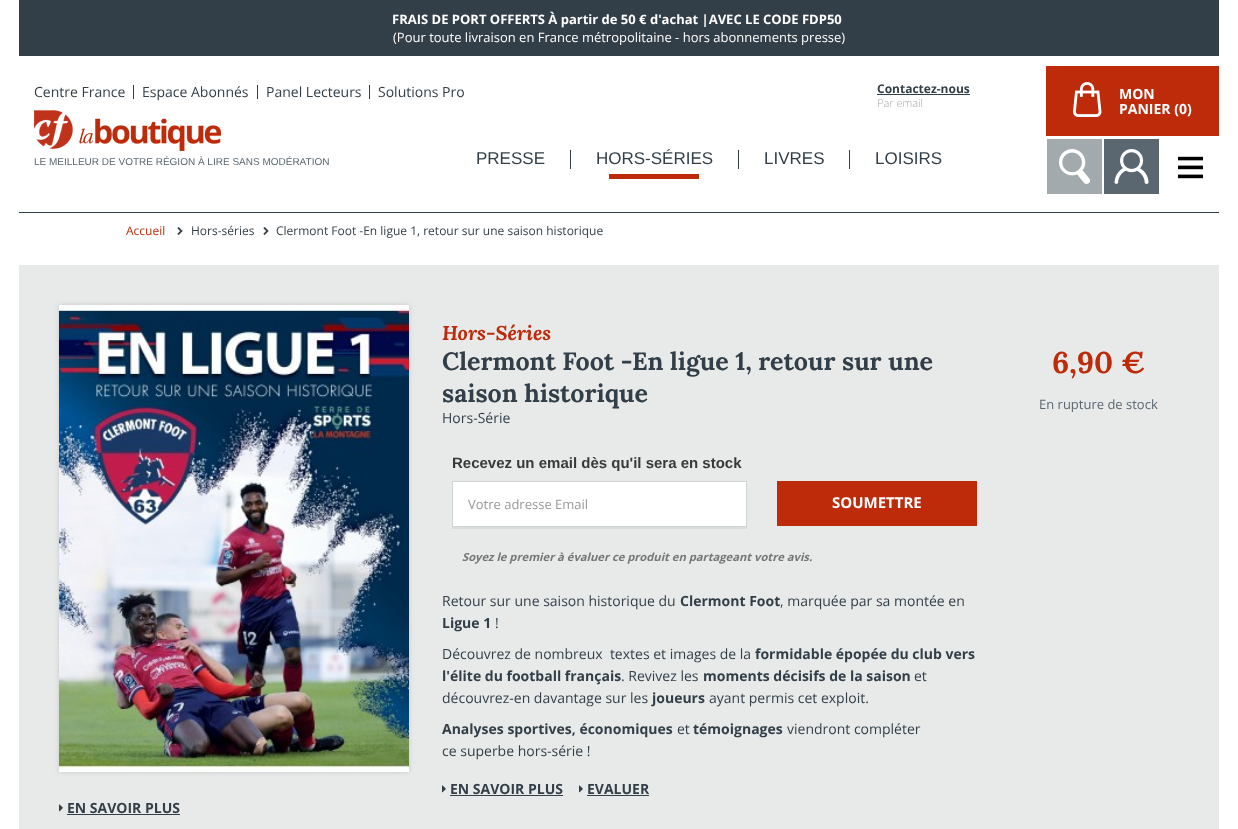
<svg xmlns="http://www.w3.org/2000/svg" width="1238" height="829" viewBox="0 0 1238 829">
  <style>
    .t1 { font: bold 13px Open Sans; fill: #fff; }
    .t2 { font: 13px Open Sans; fill: #fff; }
    .t3 { font: 14px Open Sans; fill: #333f48; }
    .t4 { font: bold 12px Open Sans; fill: #333f48; }
    .t5 { font: 300 11px Open Sans; fill: #a2aaad; }
    .t6 { font: 10px Liberation Sans; fill: #5b6770; }
    .t7 { font: 17px Liberation Sans; fill: #333f48; }
    .t8 { font: bold 14px Open Sans; fill: #fff; }
    .t9 { font: 12px Open Sans; fill: #bd2b0b; }
    .t10 { font: 12px Open Sans; fill: #333f48; }
    .t11 { font: italic bold 20px Lora; fill: #bd2b0b; }
    .t12 { font: bold 25px Lora; fill: #333f48; }
    .t13 { font: bold 15px Liberation Sans; fill: #3a3939; }
    .t14 { font: 13px Open Sans; fill: #999; }
    .t15 { font: bold 15px Open Sans; fill: #fff; }
    .t16 { font: italic bold 11.2px Open Sans; fill: #777676; }
    .t17 { font: bold 14px Open Sans; fill: #333f48; }
    .t18 { font: bold 30px Lora; fill: #bd2b0b; }
    .t19 { font: 13px Open Sans; fill: #5b6770; }
  </style>
  <rect width="100%" height="100%" fill="#fff"/>
  <rect x="19" y="0" width="1200" height="56" fill="#333f48"/>
  <text x="392" y="24" class="t1">FRAIS DE PORT OFFERTS À partir de 50 € d'achat |AVEC LE CODE FDP50</text>
  <text x="393" y="42" class="t2">(Pour toute livraison en France métropolitaine - hors abonnements presse)</text>
  <rect x="133" y="85" width="1" height="14" fill="#333f48"/>
  <text x="34" y="97" class="t3">Centre France</text>
  <rect x="257" y="85" width="1" height="14" fill="#333f48"/>
  <text x="142" y="97" class="t3">Espace Abonnés</text>
  <rect x="369" y="85" width="1" height="14" fill="#333f48"/>
  <text x="266" y="97" class="t3">Panel Lecteurs</text>
  <text x="378" y="97" class="t3">Solutions Pro</text>
  <text x="877" y="93" class="t4">Contactez-nous</text>
  <rect x="877" y="94" width="93" height="1" fill="#333f48"/>
  <text x="877" y="107" class="t5">Par email</text>
  <image x="34" y="110" width="187" height="41" href="images/1.png"/>
  <text x="34" y="165" class="t6">LE MEILLEUR DE VOTRE RÉGION À LIRE SANS MODÉRATION</text>
  <rect x="570" y="150" width="1" height="19" fill="#333f48"/>
  <text x="476" y="164" class="t7">PRESSE</text>
  <rect x="738" y="150" width="1" height="19" fill="#333f48"/>
  <text x="596" y="164" class="t7">HORS-SÉRIES</text>
  <rect x="609" y="174" width="90" height="5" fill="#bd2b0b"/>
  <rect x="849" y="150" width="1" height="19" fill="#333f48"/>
  <text x="764" y="164" class="t7">LIVRES</text>
  <text x="875" y="164" class="t7">LOISIRS</text>
  <rect x="1046" y="66" width="173" height="70" fill="#bd2b0b"/>
  <image x="1073" y="82" width="29" height="35" href="images/2.png"/>
  <text x="1119" y="99" class="t8">MON</text>
  <text x="1119" y="114" class="t8">PANIER (0)</text>
  <rect x="1047" y="139" width="55" height="55" fill="#a2aaad"/>
  <image x="1058" y="149" width="32" height="35" href="images/3.png"/>
  <rect x="1104" y="139" width="55" height="55" fill="#5b6770"/>
  <image x="1114" y="149" width="35" height="35" href="images/4.png"/>
  <image x="1178" y="156" width="25" height="23" href="images/5.png"/>
  <rect x="19" y="212" width="1200" height="1" fill="#333f48"/>
  <text x="126" y="235" class="t9">Accueil</text>
  <image x="177" y="227" width="6" height="8" href="images/6.png"/>
  <text x="191" y="235" class="t10">Hors-séries</text>
  <image x="263" y="227" width="6" height="8" href="images/6.png"/>
  <text x="276" y="235" class="t10">Clermont Foot -En ligue 1, retour sur une saison historique</text>
  <rect x="19" y="265" width="1200" height="564" fill="#e8eaea"/>
  <text x="442" y="340" class="t11">Hors-Séries</text>
  <text x="442" y="370" class="t12">Clermont Foot -En ligue 1, retour sur une</text>
  <text x="442" y="402" class="t12">saison historique</text>
  <text x="442" y="423" class="t3">Hors-Série</text>
  <text x="452" y="468" class="t13">Recevez un email dès qu'il sera en stock</text>
  <rect x="452" y="527" width="295" height="2" fill="#d7dbdc"/>
  <rect x="452.5" y="481.5" width="294" height="45" fill="#fff" stroke="#d0d4d6"/>
  <text x="468" y="509" class="t14">Votre adresse Email</text>
  <rect x="777" y="481" width="200" height="45" fill="#bd2b0b"/>
  <text x="832" y="508" class="t15">SOUMETTRE</text>
  <text x="462" y="561" class="t16">Soyez le premier à évaluer ce produit en partageant votre avis.</text>
  <text x="442" y="606" class="t3">Retour sur une saison historique du</text>
  <text x="680" y="606" class="t17">Clermont Foot</text>
  <text x="780" y="606" class="t3">, marquée par sa montée en</text>
  <text x="442" y="628" class="t17">Ligue 1</text>
  <text x="495" y="628" class="t3">!</text>
  <text x="442" y="659" class="t3" xml:space="preserve">Découvrez de nombreux  textes et images de la</text>
  <text x="755" y="659" class="t17">formidable épopée du club vers</text>
  <text x="442" y="681" class="t17">l'élite du football français</text>
  <text x="621" y="681" class="t3">. Revivez les</text>
  <text x="703" y="681" class="t17">moments décisifs de la saison</text>
  <text x="914" y="681" class="t3">et</text>
  <text x="442" y="703" class="t3">découvrez-en davantage sur les</text>
  <text x="652" y="703" class="t17">joueurs</text>
  <text x="709" y="703" class="t3">ayant permis cet exploit.</text>
  <text x="442" y="734" class="t17">Analyses sportives, économiques</text>
  <text x="677" y="734" class="t3">et</text>
  <text x="693" y="734" class="t17">témoignages</text>
  <text x="787" y="734" class="t3">viendront compléter</text>
  <text x="442" y="756" class="t3">ce superbe hors-série !</text>
  <image x="442" y="785" width="4" height="8" href="images/7.png"/>
  <text x="450" y="794" class="t17">EN SAVOIR PLUS</text>
  <rect x="450" y="795" width="113" height="1" fill="#333f48"/>
  <image x="579" y="785" width="4" height="8" href="images/7.png"/>
  <text x="587" y="794" class="t17">EVALUER</text>
  <rect x="587" y="795" width="62" height="1" fill="#333f48"/>
  <text x="1052" y="373" class="t18">6,90 €</text>
  <text x="1039" y="409" class="t19">En rupture de stock</text>
  <rect x="59" y="305" width="350" height="467" fill="#7b7b7b4d" filter="blur(2.5px)"/>
  <image x="59" y="305" width="350" height="467" href="images/8.png"/>
  <image x="59" y="804" width="4" height="8" href="images/7.png"/>
  <text x="67" y="813" class="t17">EN SAVOIR PLUS</text>
  <rect x="67" y="814" width="113" height="1" fill="#333f48"/>
</svg>
